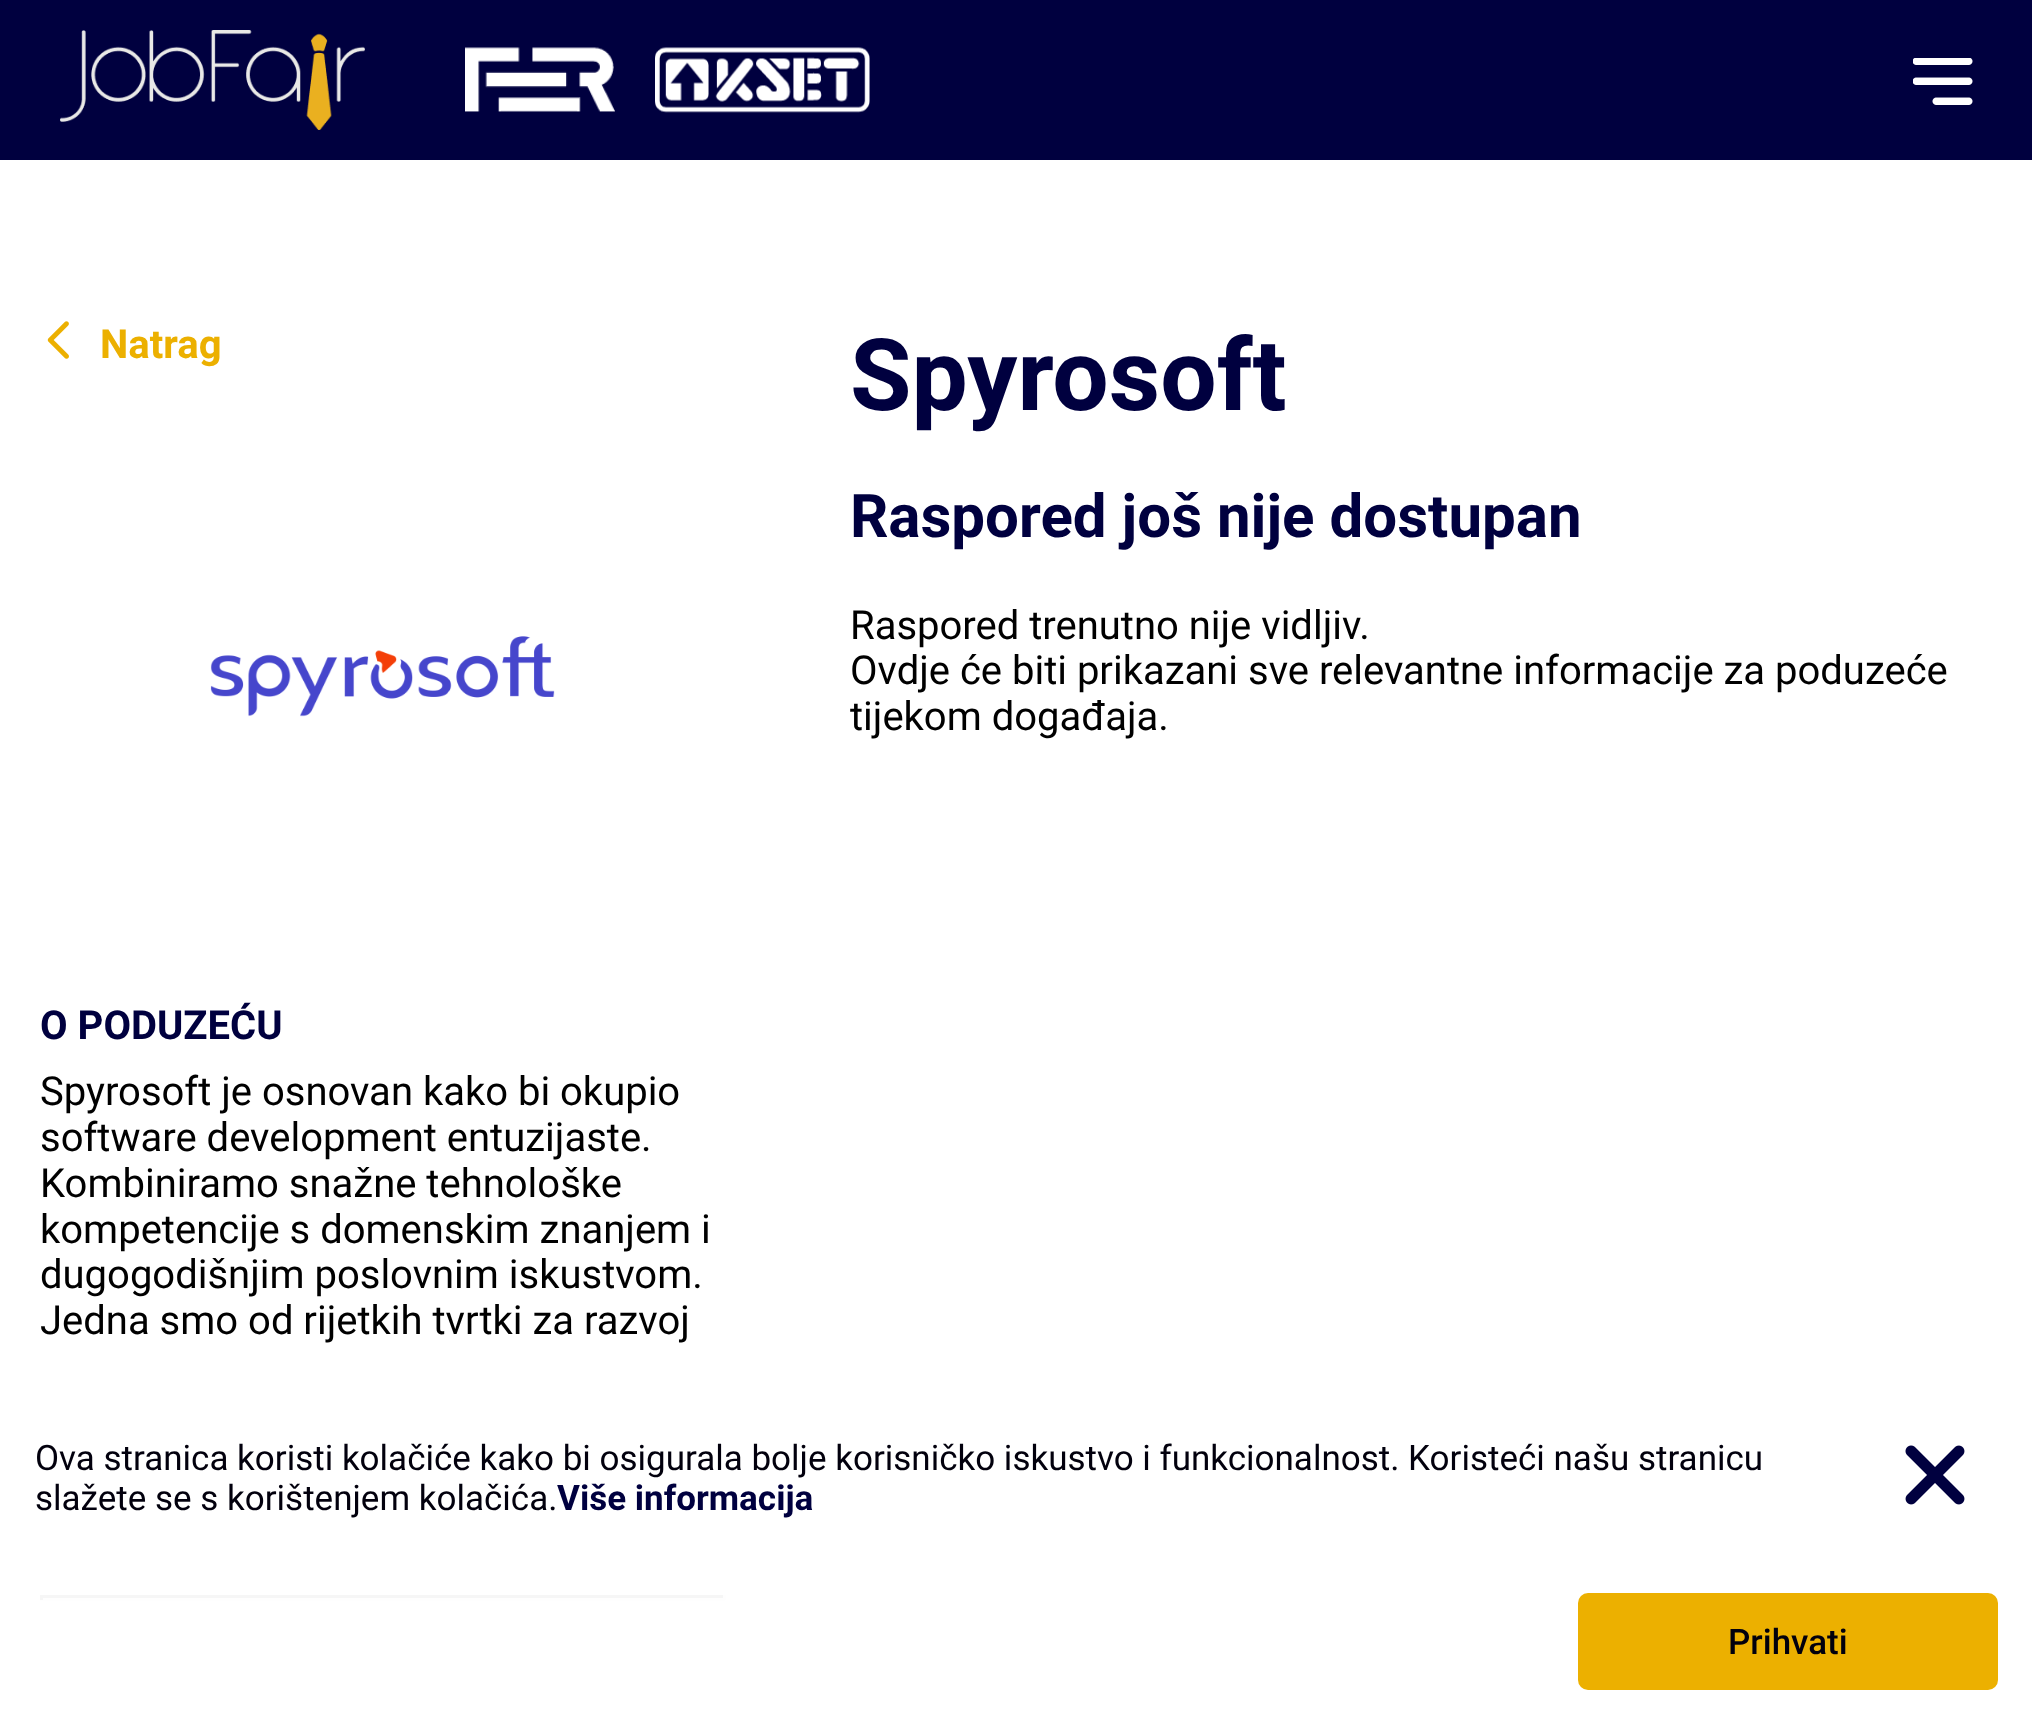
<svg xmlns="http://www.w3.org/2000/svg" width="2032" height="1721" viewBox="0 0 2032 1721">
  <style>
    .t1 { font: bold 40px Roboto; fill: #ecb000; }
    .t2 { font: bold 40px Roboto; fill: #00003f; }
    .t3 { font: 40px Roboto; fill: #000; }
    .t4 { font: bold 100px Roboto; fill: #00003f; }
    .t5 { font: bold 60px Roboto; fill: #00003f; }
    .t6 { font: 35px Roboto; fill: #02000d; }
    .t7 { font: bold 35px Roboto; fill: #00003f; }
    .t8 { font: 500 35px Roboto; fill: #02000d; }
  </style>
  <rect width="100%" height="100%" fill="#fff"/>
  <rect x="0" y="0" width="2032" height="160" fill="#00003f"/>
  <image x="60" y="30" width="305" height="100" href="images/1.png"/>
  <image x="465" y="47" width="150" height="65" href="images/2.png"/>
  <image x="655" y="47" width="215" height="66" href="images/3.png"/>
  <image x="1913" y="58" width="60" height="47" href="images/4.png"/>
  <image x="47" y="321" width="22" height="38" href="images/5.png"/>
  <text x="100" y="358" class="t1">Natrag</text>
  <image x="210" y="636" width="345" height="81" href="images/6.png"/>
  <text x="40" y="1039" class="t2">O PODUZEĆU</text>
  <text x="40" y="1105" class="t3">Spyrosoft je osnovan kako bi okupio</text>
  <text x="40" y="1151" class="t3">software development entuzijaste.</text>
  <text x="40" y="1197" class="t3">Kombiniramo snažne tehnološke</text>
  <text x="40" y="1243" class="t3">kompetencije s domenskim znanjem i</text>
  <text x="40" y="1288" class="t3">dugogodišnjim poslovnim iskustvom.</text>
  <text x="40" y="1334" class="t3">Jedna smo od rijetkih tvrtki za razvoj</text>
  <rect x="40" y="1595" width="685" height="3" fill="#9f9f9f"/>
  <rect x="723" y="1595" width="3" height="5" fill="#eee"/>
  <rect x="40" y="1598" width="685" height="3" fill="#eee"/>
  <rect x="40" y="1595" width="3" height="5" fill="#9f9f9f"/>
  <text x="850" y="410" class="t4">Spyrosoft</text>
  <text x="850" y="537" class="t5">Raspored još nije dostupan</text>
  <text x="850" y="639" class="t3">Raspored trenutno nije vidljiv.</text>
  <text x="850" y="684" class="t3">Ovdje će biti prikazani sve relevantne informacije za poduzeće</text>
  <text x="850" y="730" class="t3">tijekom događaja.</text>
  <rect x="40" y="1595" width="686" height="6" fill="#ffffffe6"/>
  <text x="35" y="1470" class="t6">Ova stranica koristi kolačiće kako bi osigurala bolje korisničko iskustvo i funkcionalnost. Koristeći našu stranicu</text>
  <text x="35" y="1510" class="t6">slažete se s korištenjem kolačića.</text>
  <text x="557" y="1510" class="t7">Više informacija</text>
  <image x="1905" y="1445" width="60" height="60" href="images/7.png"/>
  <rect x="1578" y="1593" width="420" height="97" rx="10" fill="#ecb000"/>
  <text x="1728" y="1654" class="t8">Prihvati</text>
</svg>
